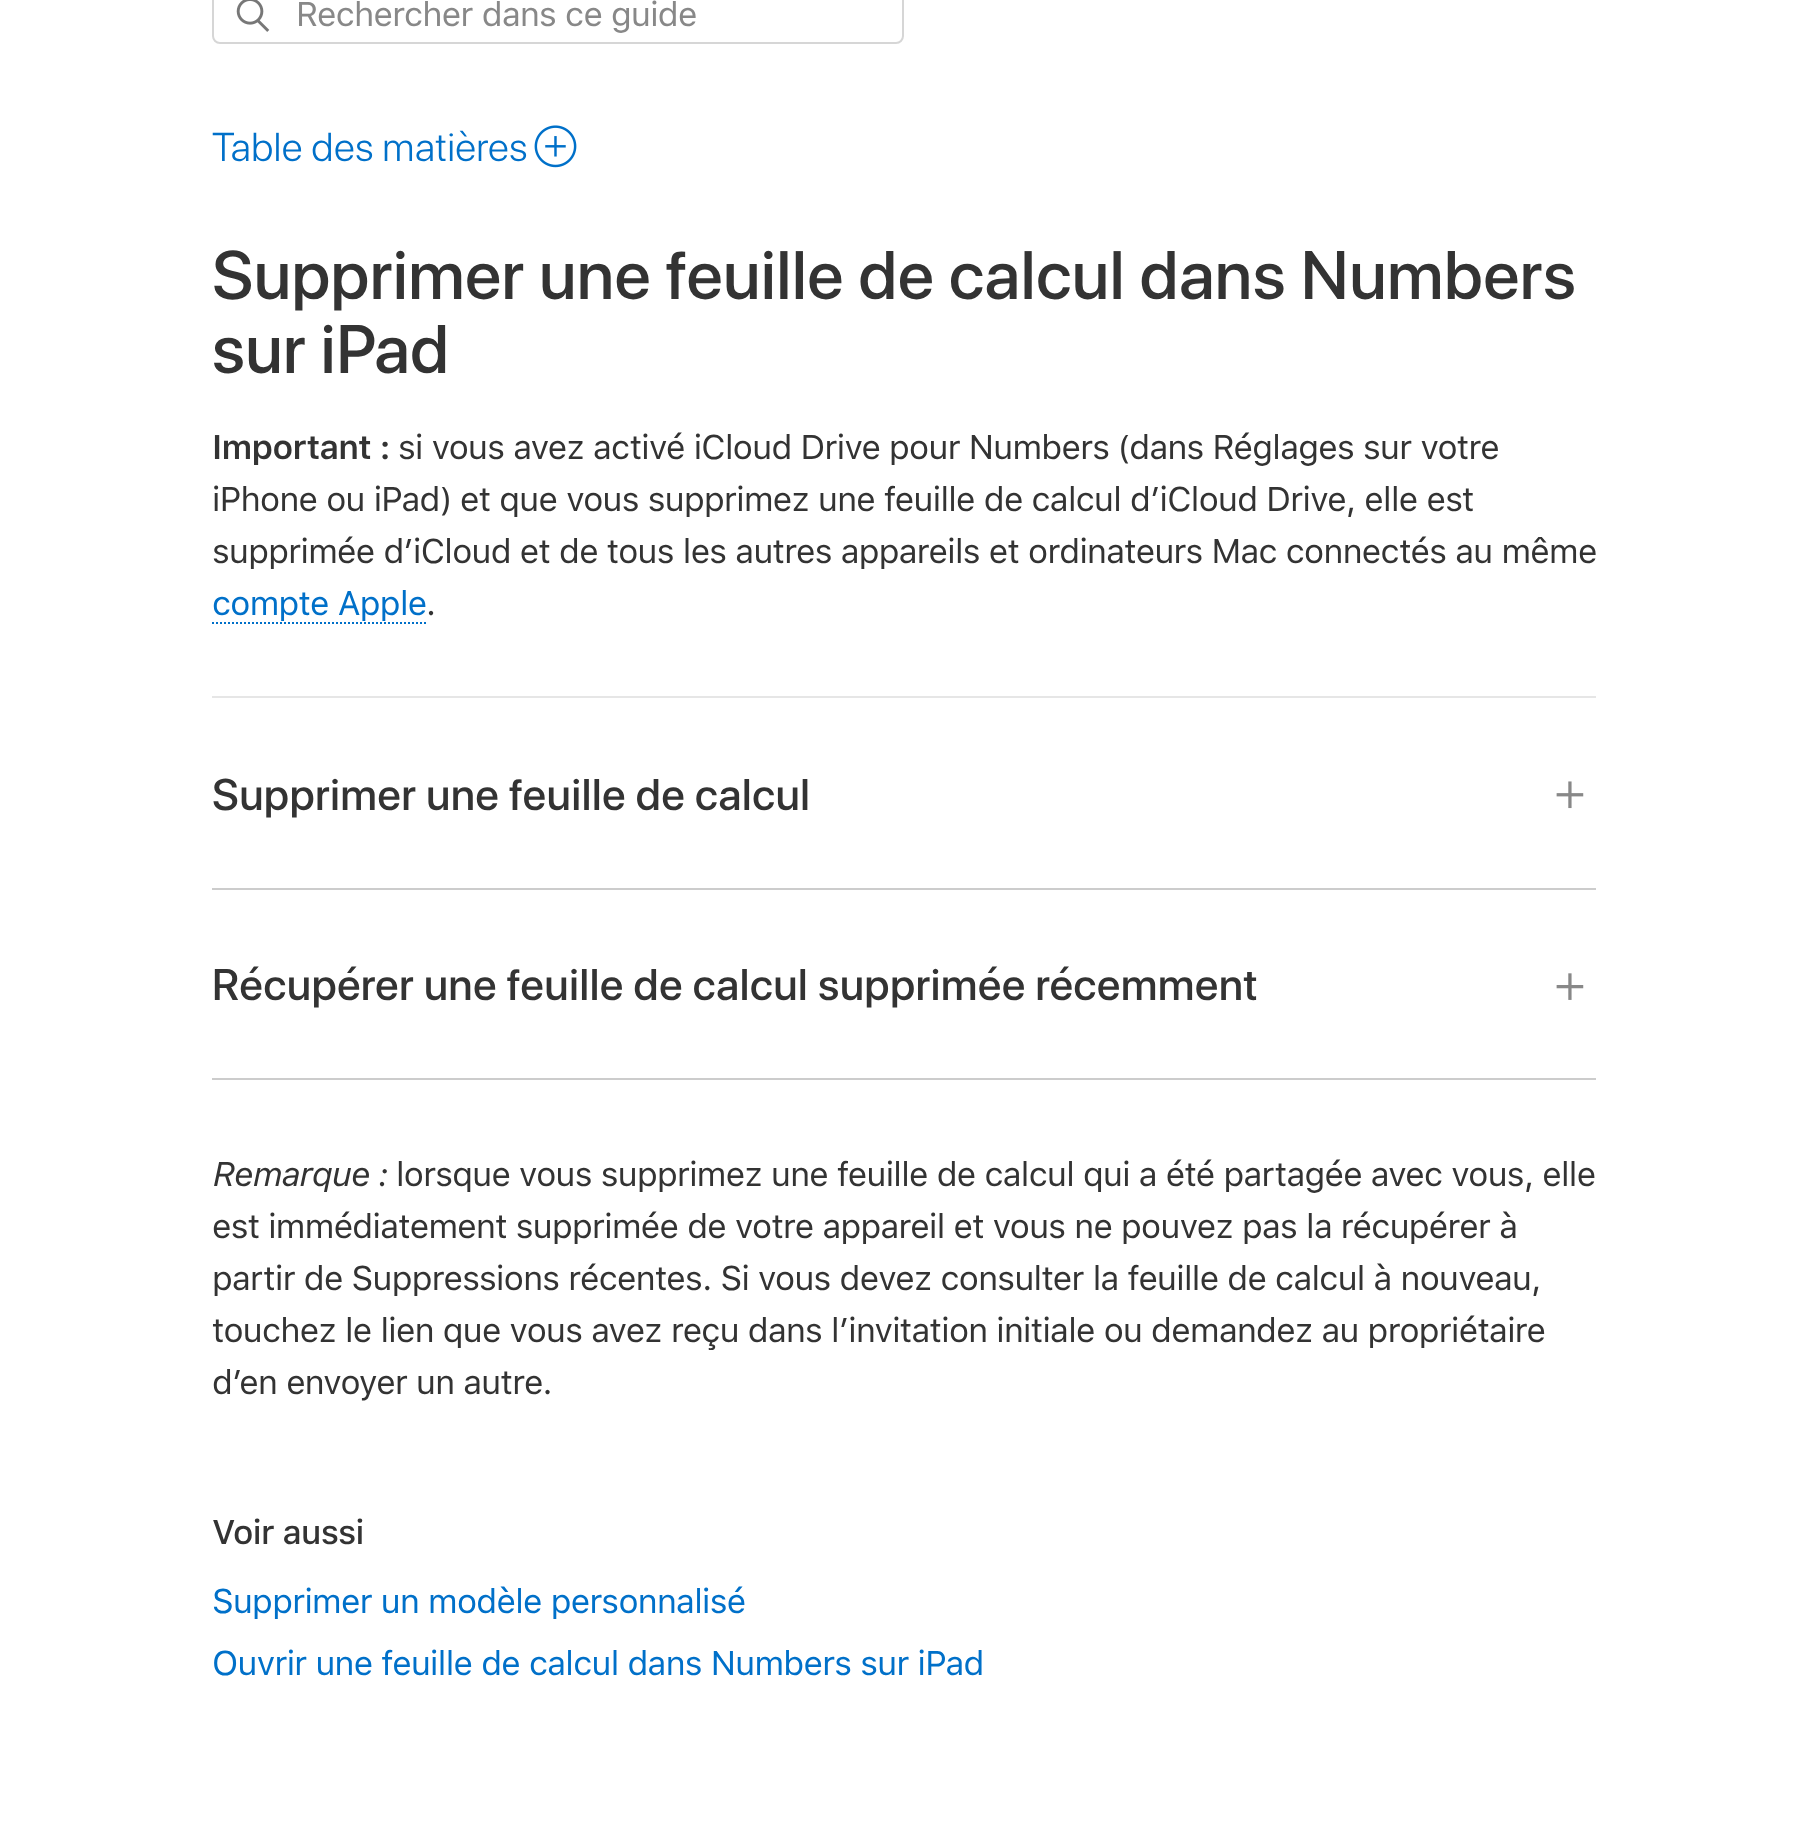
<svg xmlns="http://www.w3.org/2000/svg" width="1807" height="1842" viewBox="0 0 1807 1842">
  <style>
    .t1 { font: 34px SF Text; letter-spacing: -0.7px; fill: #888; }
    .t2 { font: 300 40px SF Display; letter-spacing: 0.7px; fill: #0070c9; }
    .t3 { font: 500 68px SF Display; letter-spacing: 0.7px; fill: #333; }
    .t4 { font: 600 34px SF Text; letter-spacing: -0.7px; fill: #333; }
    .t5 { font: 34px SF Text; letter-spacing: -0.7px; fill: #333; }
    .t6 { font: 34px SF Text; letter-spacing: -0.7px; fill: #0070c9; }
    .t7 { font: 500 44px SF Display; letter-spacing: 0.7px; fill: #333; }
    .t8 { font: italic 34px SF Text; letter-spacing: -0.7px; fill: #333; }
    .t9 { font: 500 34px SF Text; letter-spacing: -0.7px; fill: #333; }
  </style>
  <rect width="100%" height="100%" fill="#fff"/>
  <rect x="213" y="-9" width="690" height="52" rx="7" fill="none" stroke="#d6d6d6" stroke-width="2"/>
  <image x="236" y="0" width="34" height="32" href="images/1.png"/>
  <text x="296" y="26" class="t1">Rechercher dans ce guide</text>
  <text x="212" y="161" class="t2">Table des matières</text>
  <image x="534" y="125" width="43" height="43" href="images/2.png"/>
  <text x="212" y="299" class="t3">Supprimer une feuille de calcul dans Numbers</text>
  <text x="212" y="373" class="t3">sur iPad</text>
  <text x="212" y="459" class="t4">Important :</text>
  <text x="398" y="459" class="t5">si vous avez activé iCloud Drive pour Numbers (dans Réglages sur votre</text>
  <text x="212" y="511" class="t5">iPhone ou iPad) et que vous supprimez une feuille de calcul d’iCloud Drive, elle est</text>
  <text x="212" y="563" class="t5">supprimée d’iCloud et de tous les autres appareils et ordinateurs Mac connectés au même</text>
  <text x="212" y="615" class="t6">compte Apple</text>
  <path d="M212 623H426" fill="none" stroke="#0070c9" stroke-width="2" stroke-dasharray="2 2"/>
  <text x="426" y="615" class="t5">.</text>
  <rect x="212" y="696" width="1384" height="2" fill="#e6e6e6"/>
  <text x="212" y="810" class="t7">Supprimer une feuille de calcul</text>
  <image x="1556" y="781" width="28" height="28" href="images/3.png"/>
  <rect x="212" y="888" width="1384" height="2" fill="#ccc"/>
  <text x="212" y="1000" class="t7">Récupérer une feuille de calcul supprimée récemment</text>
  <image x="1556" y="973" width="28" height="27" href="images/4.png"/>
  <rect x="212" y="1078" width="1384" height="2" fill="#ccc"/>
  <text x="212" y="1186" class="t8">Remarque :</text>
  <text x="396" y="1186" class="t5">lorsque vous supprimez une feuille de calcul qui a été partagée avec vous, elle</text>
  <text x="212" y="1238" class="t5">est immédiatement supprimée de votre appareil et vous ne pouvez pas la récupérer à</text>
  <text x="212" y="1290" class="t5">partir de Suppressions récentes. Si vous devez consulter la feuille de calcul à nouveau,</text>
  <text x="212" y="1342" class="t5">touchez le lien que vous avez reçu dans l’invitation initiale ou demandez au propriétaire</text>
  <text x="212" y="1394" class="t5">d’en envoyer un autre.</text>
  <text x="212" y="1544" class="t9">Voir aussi</text>
  <text x="212" y="1613" class="t6">Supprimer un modèle personnalisé</text>
  <text x="212" y="1675" class="t6">Ouvrir une feuille de calcul dans Numbers sur iPad</text>
</svg>
